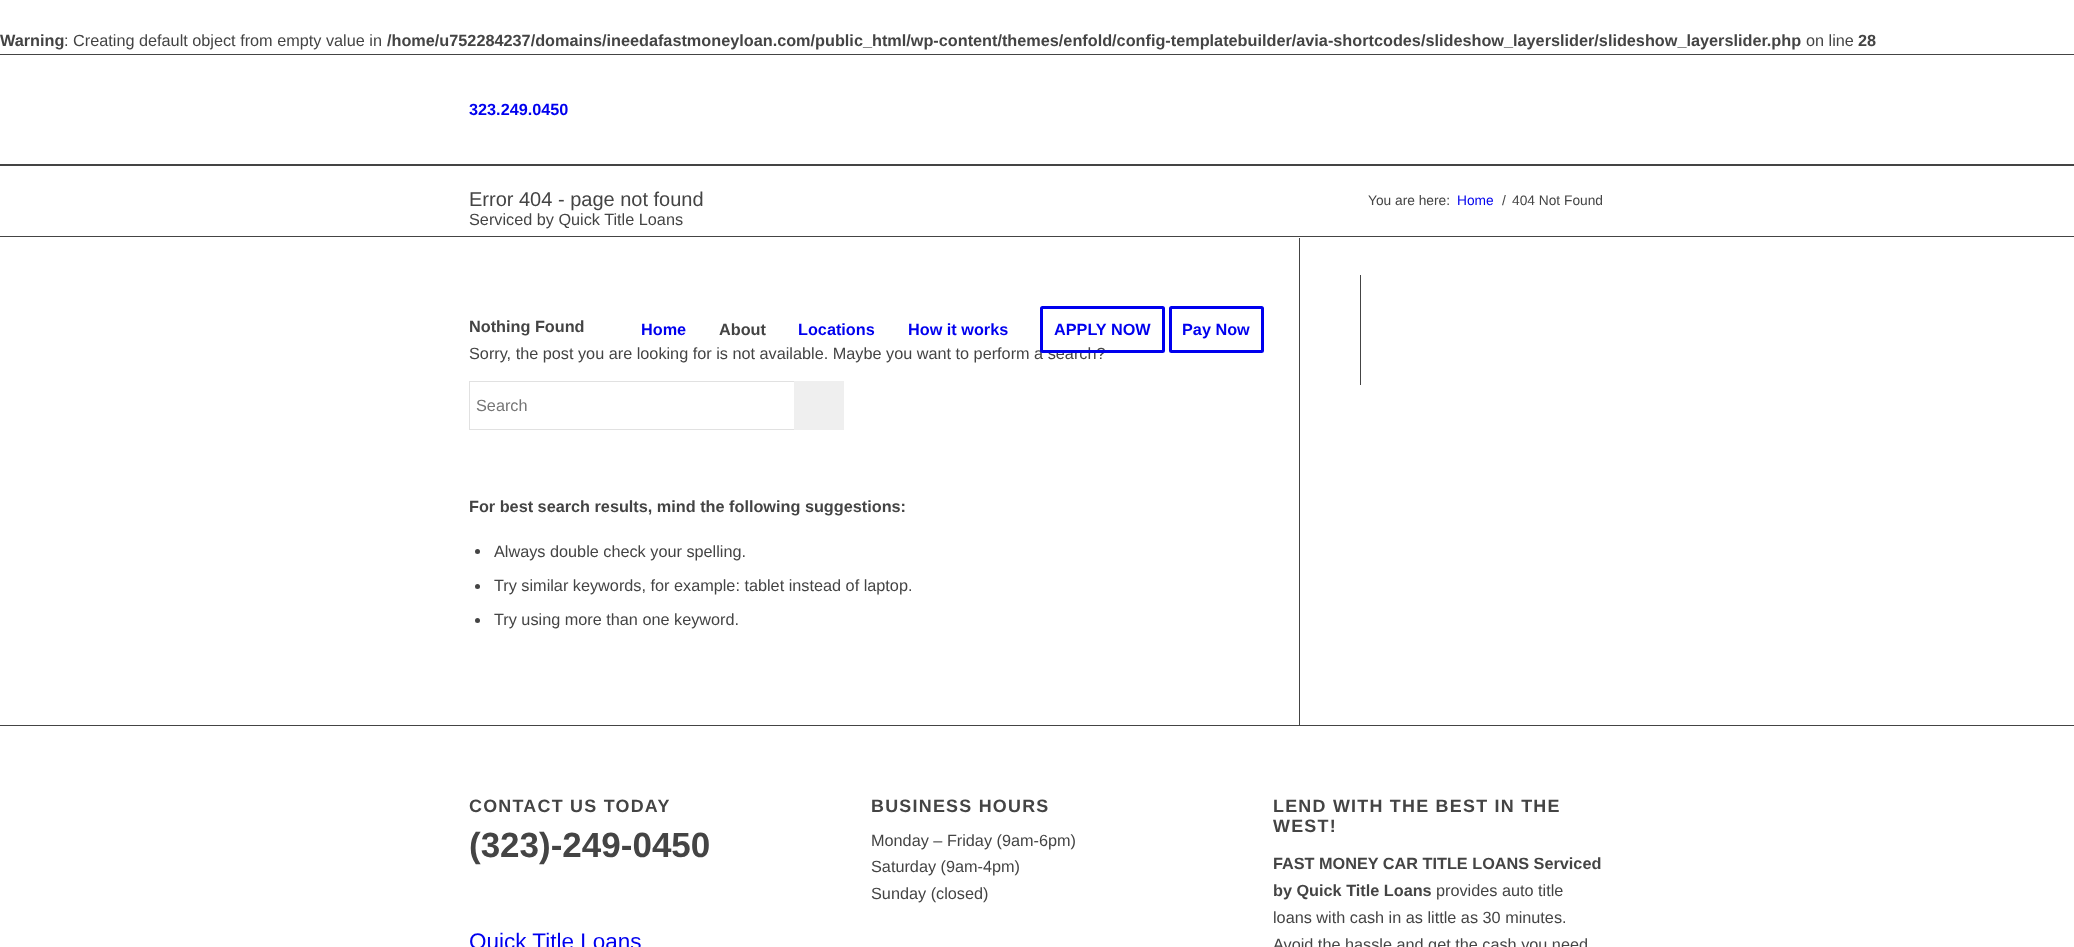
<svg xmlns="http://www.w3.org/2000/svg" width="2074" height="947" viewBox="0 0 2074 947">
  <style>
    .t1 { font: bold 16.25px Liberation Sans; fill: #444; }
    .t2 { font: 16.25px Liberation Sans; fill: #444; }
    .t3 { font: bold 16.25px Liberation Sans; fill: #00e; }
    .t4 { font: 20px Liberation Sans; fill: #444; }
    .t5 { font: 13.75px Liberation Sans; fill: #444; }
    .t6 { font: 13.75px Liberation Sans; fill: #00e; }
    .t7 { font: 16.25px Liberation Sans; fill: #757575; }
    .t8 { font: bold 17.9px Liberation Sans; letter-spacing: 1.25px; fill: #444; }
    .t9 { font: bold 35px Liberation Sans; fill: #444; }
    .t10 { font: 22.5px Liberation Sans; fill: #00e; }
  </style>
  <rect width="100%" height="100%" fill="#fff"/>
  <text x="0" y="46" class="t1">Warning</text>
  <text x="64" y="46" class="t2">: Creating default object from empty value in</text>
  <text x="387" y="46" class="t1">/home/u752284237/domains/ineedafastmoneyloan.com/public_html/wp-content/themes/enfold/config-templatebuilder/avia-shortcodes/slideshow_layerslider/slideshow_layerslider.php</text>
  <text x="1806" y="46" class="t2">on line</text>
  <text x="1858" y="46" class="t1">28</text>
  <rect x="0" y="54" width="2074" height="1" fill="#444"/>
  <text x="469" y="115" class="t3">323.249.0450</text>
  <text x="469" y="225" class="t2">Serviced by Quick Title Loans</text>
  <rect x="1360" y="275" width="1" height="110" fill="#444"/>
  <text x="641" y="335" class="t3">Home</text>
  <text x="719" y="335" class="t1">About</text>
  <text x="798" y="335" class="t3">Locations</text>
  <text x="908" y="335" class="t3">How it works</text>
  <text x="469" y="359" class="t2">Sorry, the post you are looking for is not available. Maybe you want to perform a search?</text>
  <rect x="1041.5" y="307.5" width="122" height="44" rx="1" fill="none" stroke="#00e" stroke-width="3"/>
  <text x="1054" y="335" class="t3">APPLY NOW</text>
  <rect x="1170.5" y="307.5" width="92" height="44" rx="1" fill="none" stroke="#00e" stroke-width="3"/>
  <text x="1182" y="335" class="t3">Pay Now</text>
  <rect x="0" y="164" width="2074" height="2" fill="#444"/>
  <text x="469" y="206" class="t4">Error 404 - page not found</text>
  <text x="1368" y="205" class="t5">You are here:</text>
  <text x="1457" y="205" class="t6">Home</text>
  <text x="1502" y="205" class="t5">/</text>
  <text x="1512" y="205" class="t5">404 Not Found</text>
  <rect x="0" y="236" width="2074" height="1" fill="#444"/>
  <rect x="1299" y="238" width="1" height="487" fill="#444"/>
  <text x="469" y="332" class="t1">Nothing Found</text>
  <rect x="469.5" y="381.5" width="374" height="48" fill="none" stroke="#e1e1e1"/>
  <text x="476" y="411" class="t7">Search</text>
  <rect x="794" y="381" width="50" height="49" fill="#efefef"/>
  <text x="469" y="512" class="t1">For best search results, mind the following suggestions:</text>
  <circle cx="477.5" cy="551.5" r="2.5" fill="#444"/>
  <text x="494" y="557" class="t2">Always double check your spelling.</text>
  <circle cx="477.5" cy="586.5" r="2.5" fill="#444"/>
  <text x="494" y="591" class="t2">Try similar keywords, for example: tablet instead of laptop.</text>
  <circle cx="477.5" cy="620.5" r="2.5" fill="#444"/>
  <text x="494" y="625" class="t2">Try using more than one keyword.</text>
  <rect x="0" y="725" width="2074" height="1" fill="#444"/>
  <text x="469" y="812" class="t8">CONTACT US TODAY</text>
  <text x="469" y="857" class="t9">(323)-249-0450</text>
  <text x="469" y="949" class="t10">Quick Title Loans</text>
  <text x="871" y="812" class="t8">BUSINESS HOURS</text>
  <text x="871" y="846" class="t2">Monday – Friday (9am-6pm)</text>
  <text x="871" y="872" class="t2">Saturday (9am-4pm)</text>
  <text x="871" y="899" class="t2">Sunday (closed)</text>
  <text x="1273" y="812" class="t8">LEND WITH THE BEST IN THE</text>
  <text x="1273" y="832" class="t8">WEST!</text>
  <text x="1273" y="869" class="t1">FAST MONEY CAR TITLE LOANS Serviced</text>
  <text x="1273" y="896" class="t1">by Quick Title Loans</text>
  <text x="1436" y="896" class="t2">provides auto title</text>
  <text x="1273" y="923" class="t2">loans with cash in as little as 30 minutes.</text>
  <text x="1273" y="950" class="t2">Avoid the hassle and get the cash you need</text>
</svg>
